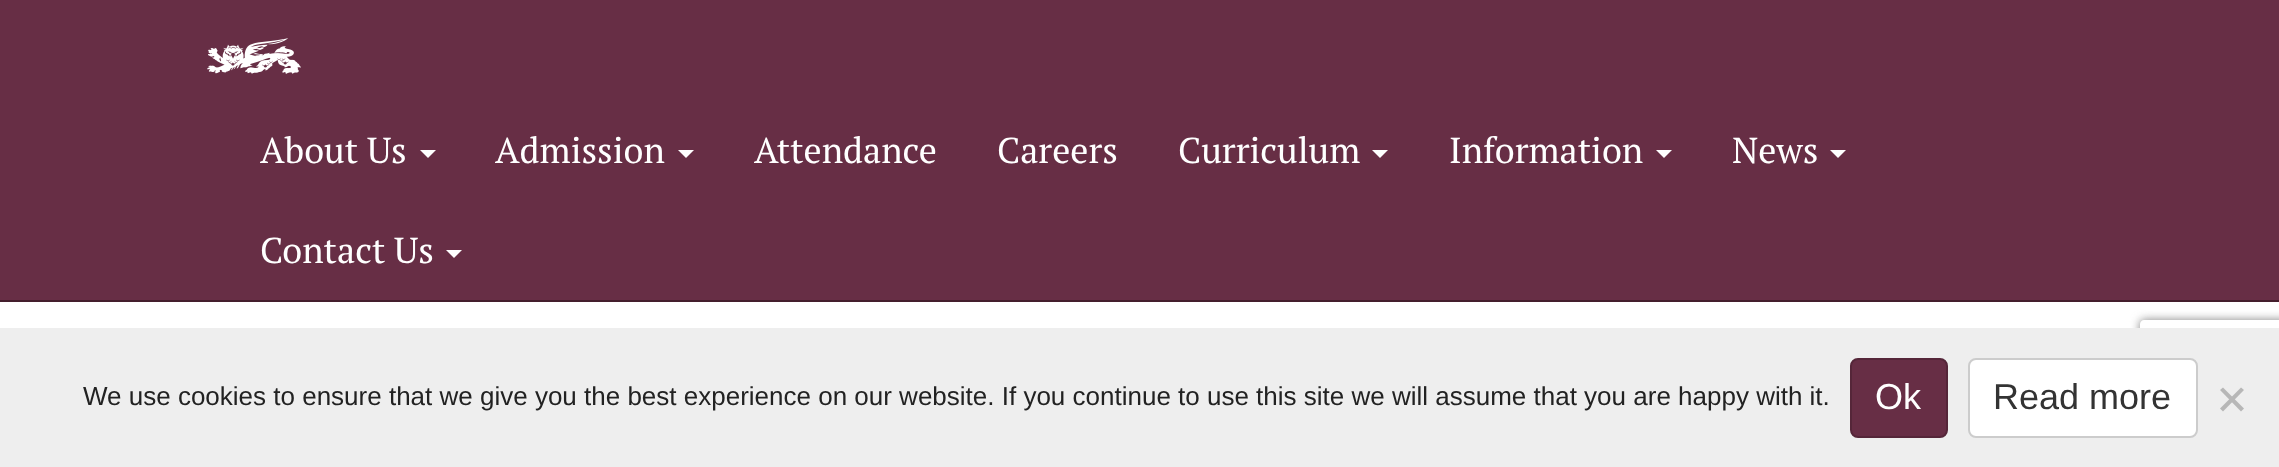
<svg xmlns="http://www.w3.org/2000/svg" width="2279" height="467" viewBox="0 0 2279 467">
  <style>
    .t1 { font: 36px PT Serif; fill: #fff; }
    .t2 { font: 26px Liberation Sans; fill: #222; }
    .t3 { font: 36px Liberation Sans; fill: #fff; }
    .t4 { font: 36px Liberation Sans; fill: #333; }
  </style>
  <defs>
    <clipPath id="clip1"><path d="M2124 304H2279V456H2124ZM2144 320H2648C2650 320 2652 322 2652 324V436C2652 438 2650 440 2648 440H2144C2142 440 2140 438 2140 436V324C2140 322 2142 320 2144 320Z" clip-rule="evenodd"/></clipPath>
  </defs>
  <rect width="100%" height="100%" fill="#fff"/>
  <rect x="0" y="0" width="2279" height="300" fill="#672e45"/>
  <rect x="0" y="300" width="2279" height="2" fill="#441e2d"/>
  <image x="207" y="38" width="94" height="36" href="images/1.png"/>
  <text x="260" y="163" class="t1">About Us</text>
  <path d="M420 150H436L428 158Z" fill="#fff"/>
  <text x="495" y="163" class="t1">Admission</text>
  <path d="M678 150H694L686 158Z" fill="#fff"/>
  <text x="754" y="163" class="t1">Attendance</text>
  <text x="997" y="163" class="t1">Careers</text>
  <text x="1178" y="163" class="t1">Curriculum</text>
  <path d="M1372 150H1388L1380 158Z" fill="#fff"/>
  <text x="1449" y="163" class="t1">Information</text>
  <path d="M1656 150H1672L1664 158Z" fill="#fff"/>
  <text x="1732" y="163" class="t1">News</text>
  <path d="M1830 150H1846L1838 158Z" fill="#fff"/>
  <text x="260" y="263" class="t1">Contact Us</text>
  <path d="M446 250H462L454 258Z" fill="#fff"/>
  <g clip-path="url(#clip1)">
    <rect x="2140" y="320" width="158" height="120" rx="4" fill="#808080" filter="blur(5px)"/>
  </g>
  <rect x="0" y="328" width="2279" height="139" fill="#eee"/>
  <text x="83" y="405" class="t2">We use cookies to ensure that we give you the best experience on our website. If you continue to use this site we will assume that you are happy with it.</text>
  <rect x="1851" y="359" width="96" height="78" rx="7" fill="#672e45" stroke="#552639" stroke-width="2"/>
  <text x="1875" y="409" class="t3">Ok</text>
  <rect x="1969" y="359" width="228" height="78" rx="7" fill="#fff" stroke="#ccc" stroke-width="2"/>
  <text x="1993" y="409" class="t4">Read more</text>
  <path d="M2241 387.5L2244 390L2223 411.5L2220 408.5Z" fill="#b7b7b7"/>
  <path d="M2220 390L2223 387.5L2244 408.5L2241 411.5Z" fill="#b7b7b7"/>
</svg>
